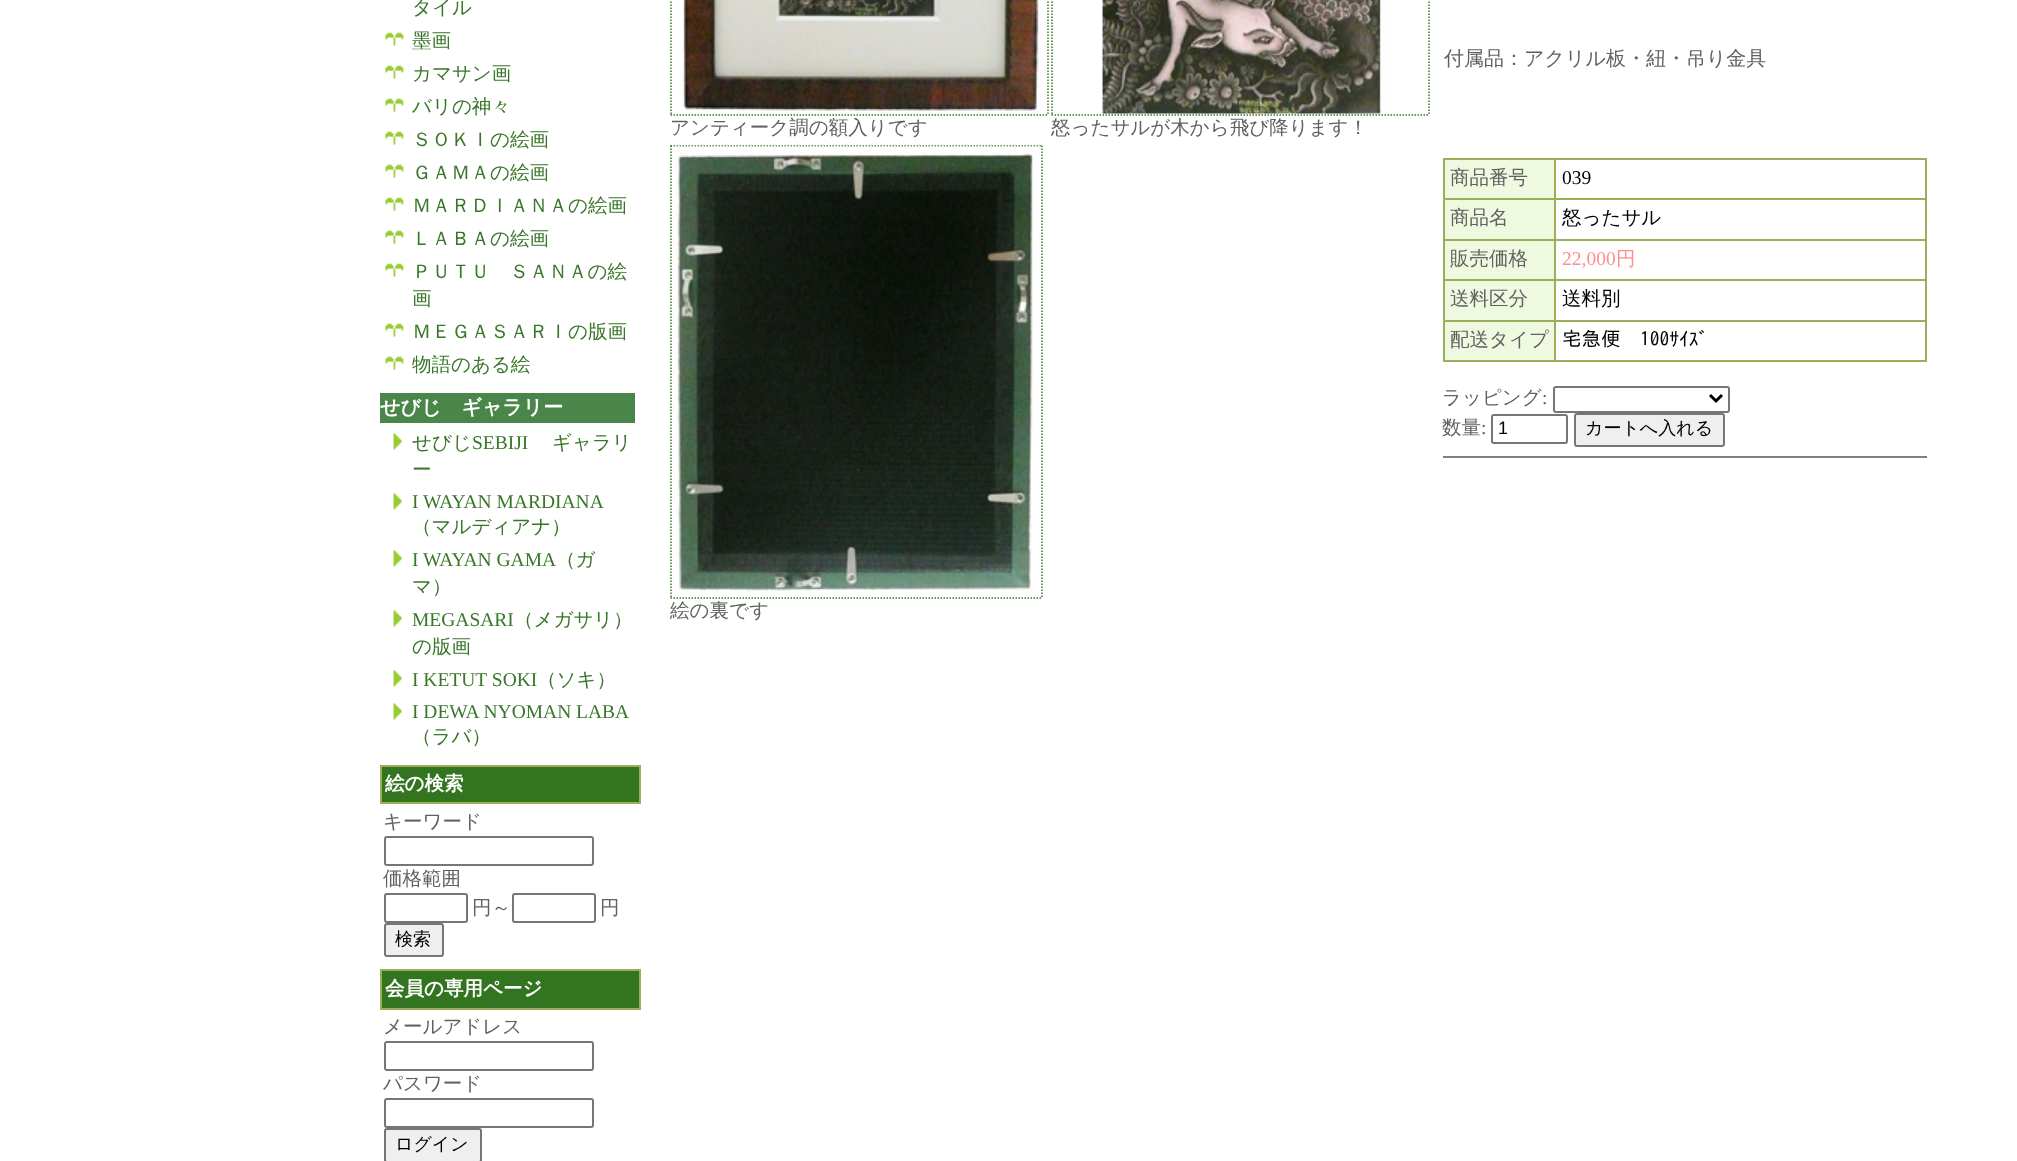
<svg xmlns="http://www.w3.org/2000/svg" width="2017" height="1161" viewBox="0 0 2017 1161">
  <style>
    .t1 { font: 500 19.5px WenQuanYi Zen Hei; fill: #387629; }
    .t2 { font: bold 20px WenQuanYi Zen Hei; fill: #fff; }
    .t3 { font: 19.5px Liberation Serif; fill: #387629; }
    .t4 { font: bold 19.5px WenQuanYi Zen Hei; fill: #fff; }
    .t5 { font: 500 19.5px WenQuanYi Zen Hei; fill: #616161; }
    .t6 { font: 500 18px WenQuanYi Zen Hei; fill: #000; }
    .t7 { font: 500 20px WenQuanYi Zen Hei; fill: #616161; }
    .t8 { font: 19.5px Liberation Serif; fill: #000; }
    .t9 { font: 500 19.5px WenQuanYi Zen Hei; fill: #000; }
    .t10 { font: 19.5px Liberation Serif; fill: #ff8e8e; }
    .t11 { font: 500 19.5px WenQuanYi Zen Hei; fill: #ff8e8e; }
    .t12 { font: 19.5px IPAGothic; fill: #000; }
    .t13 { font: 19.5px Liberation Serif; fill: #616161; }
    .t14 { font: 18px Liberation Sans; fill: #000; }
  </style>
  <rect width="100%" height="100%" fill="#fff"/>
  <text x="412" y="14" class="t1">タイル</text>
  <image x="385" y="32" width="19" height="14" href="images/1.png"/>
  <text x="412" y="47" class="t1">墨画</text>
  <image x="385" y="65" width="19" height="14" href="images/1.png"/>
  <text x="412" y="80" class="t1">カマサン画</text>
  <image x="385" y="98" width="19" height="14" href="images/1.png"/>
  <text x="412" y="113" class="t1">バリの神々</text>
  <image x="385" y="131" width="19" height="14" href="images/1.png"/>
  <text x="412" y="146" class="t1">ＳＯＫＩの絵画</text>
  <image x="385" y="164" width="19" height="14" href="images/1.png"/>
  <text x="412" y="179" class="t1">ＧＡＭＡの絵画</text>
  <image x="385" y="197" width="19" height="14" href="images/1.png"/>
  <text x="412" y="212" class="t1">ＭＡＲＤＩＡＮＡの絵画</text>
  <image x="385" y="230" width="19" height="14" href="images/1.png"/>
  <text x="412" y="245" class="t1">ＬＡＢＡの絵画</text>
  <image x="385" y="263" width="19" height="14" href="images/1.png"/>
  <text x="412" y="278" class="t1">ＰＵＴＵ　ＳＡＮＡの絵</text>
  <text x="412" y="305" class="t1">画</text>
  <image x="385" y="323" width="19" height="14" href="images/1.png"/>
  <text x="412" y="338" class="t1">ＭＥＧＡＳＡＲＩの版画</text>
  <image x="385" y="356" width="19" height="14" href="images/1.png"/>
  <text x="412" y="371" class="t1">物語のある絵</text>
  <rect x="380" y="393" width="255" height="30" fill="#4a864a"/>
  <text x="380" y="414" class="t2">せびじ　ギャラリー</text>
  <image x="393" y="433" width="9" height="17" href="images/2.png"/>
  <text x="412" y="449" class="t1">せびじ</text>
  <text x="472" y="449" class="t3">SEBIJI</text>
  <text x="552" y="449" class="t1">ギャラリ</text>
  <text x="412" y="476" class="t1">ー</text>
  <image x="393" y="493" width="9" height="17" href="images/2.png"/>
  <text x="412" y="508" class="t3">I WAYAN MARDIANA</text>
  <text x="412" y="533" class="t1">（マルディアナ）</text>
  <image x="393" y="550" width="9" height="17" href="images/2.png"/>
  <text x="412" y="566" class="t3">I WAYAN GAMA</text>
  <text x="556" y="566" class="t1">（ガ</text>
  <text x="412" y="593" class="t1">マ）</text>
  <image x="393" y="610" width="9" height="17" href="images/2.png"/>
  <text x="412" y="626" class="t3">MEGASARI</text>
  <text x="514" y="626" class="t1">（メガサリ）</text>
  <text x="412" y="653" class="t1">の版画</text>
  <image x="393" y="670" width="9" height="17" href="images/2.png"/>
  <text x="412" y="686" class="t3">I KETUT SOKI</text>
  <text x="537" y="686" class="t1">（ソキ）</text>
  <image x="393" y="703" width="9" height="17" href="images/2.png"/>
  <text x="412" y="718" class="t3">I DEWA NYOMAN LABA</text>
  <text x="412" y="743" class="t1">（ラバ）</text>
  <rect x="381" y="766" width="259" height="37" fill="#32741f" stroke="#9bae59" stroke-width="2"/>
  <text x="385" y="790" class="t4">絵の検索</text>
  <text x="383" y="828" class="t5">キーワード</text>
  <rect x="385" y="837" width="208" height="28" rx="2" fill="none" stroke="#767676" stroke-width="2"/>
  <text x="383" y="885" class="t5">価格範囲</text>
  <rect x="385" y="894" width="82" height="28" rx="2" fill="none" stroke="#767676" stroke-width="2"/>
  <text x="472" y="914" class="t5">円～</text>
  <rect x="513" y="894" width="82" height="28" rx="2" fill="none" stroke="#767676" stroke-width="2"/>
  <text x="600" y="914" class="t5">円</text>
  <rect x="385" y="924" width="58" height="32" rx="2" fill="#efefef" stroke="#767676" stroke-width="2"/>
  <text x="395" y="945" class="t6">検索</text>
  <rect x="381" y="970" width="259" height="39" fill="#32741f" stroke="#9bae59" stroke-width="2"/>
  <text x="385" y="995" class="t4">会員の専用ページ</text>
  <text x="383" y="1033" class="t5">メールアドレス</text>
  <rect x="385" y="1042" width="208" height="28" rx="2" fill="none" stroke="#767676" stroke-width="2"/>
  <text x="383" y="1090" class="t5">パスワード</text>
  <rect x="385" y="1099" width="208" height="28" rx="2" fill="none" stroke="#767676" stroke-width="2"/>
  <rect x="385" y="1129" width="96" height="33" rx="2" fill="#efefef" stroke="#767676" stroke-width="2"/>
  <text x="395" y="1150" class="t6">ログイン</text>
  <path d="M671-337.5V115.5" fill="none" stroke="#387629" stroke-width="1.5" stroke-dasharray="1.5 1.5"/>
  <image x="683" y="0" width="358" height="114" href="images/3.png"/>
  <path d="M1048-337.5V115.5" fill="none" stroke="#387629" stroke-width="1.5" stroke-dasharray="1.5 1.5"/>
  <path d="M670.5 115H1048.5" fill="none" stroke="#387629" stroke-width="1.5" stroke-dasharray="1.5 1.5"/>
  <text x="670" y="134" class="t5">アンティーク調の額入りです</text>
  <path d="M1052-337.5V115.5" fill="none" stroke="#387629" stroke-width="1.5" stroke-dasharray="1.5 1.5"/>
  <image x="1101" y="0" width="288" height="114" href="images/4.png"/>
  <path d="M1429-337.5V115.5" fill="none" stroke="#387629" stroke-width="1.5" stroke-dasharray="1.5 1.5"/>
  <path d="M1051.5 115H1429.5" fill="none" stroke="#387629" stroke-width="1.5" stroke-dasharray="1.5 1.5"/>
  <text x="1051" y="134" class="t5">怒ったサルが木から飛び降ります！</text>
  <path d="M670.5 146H1042.5" fill="none" stroke="#387629" stroke-width="1.5" stroke-dasharray="1.5 1.5"/>
  <path d="M671 145.5V598.5" fill="none" stroke="#387629" stroke-width="1.5" stroke-dasharray="1.5 1.5"/>
  <image x="672" y="146" width="369" height="445" href="images/5.png"/>
  <path d="M1042 145.5V598.5" fill="none" stroke="#387629" stroke-width="1.5" stroke-dasharray="1.5 1.5"/>
  <path d="M670.5 598H1042.5" fill="none" stroke="#387629" stroke-width="1.5" stroke-dasharray="1.5 1.5"/>
  <text x="670" y="617" class="t5">絵の裏です</text>
  <text x="1444" y="65" class="t7">付属品：アクリル板・紐・吊り金具</text>
  <rect x="1445" y="160" width="109" height="38" fill="#eef9df"/>
  <rect x="1554" y="158" width="372" height="2" fill="#9bae59"/>
  <rect x="1554" y="198" width="372" height="2" fill="#9bae59"/>
  <rect x="1554" y="239" width="372" height="2" fill="#9bae59"/>
  <rect x="1554" y="279" width="372" height="2" fill="#9bae59"/>
  <rect x="1554" y="320" width="372" height="2" fill="#9bae59"/>
  <rect x="1925" y="320" width="2" height="42" fill="#9bae59"/>
  <rect x="1554" y="360" width="372" height="2" fill="#9bae59"/>
  <rect x="1554" y="320" width="2" height="42" fill="#9bae59"/>
  <rect x="1443" y="320" width="113" height="2" fill="#9bae59"/>
  <rect x="1554" y="279" width="2" height="42" fill="#9bae59"/>
  <rect x="1443" y="279" width="113" height="2" fill="#9bae59"/>
  <rect x="1554" y="239" width="2" height="42" fill="#9bae59"/>
  <rect x="1443" y="239" width="113" height="2" fill="#9bae59"/>
  <rect x="1554" y="198" width="2" height="42" fill="#9bae59"/>
  <rect x="1443" y="198" width="113" height="2" fill="#9bae59"/>
  <rect x="1554" y="158" width="2" height="42" fill="#9bae59"/>
  <rect x="1443" y="158" width="113" height="2" fill="#9bae59"/>
  <rect x="1443" y="360" width="113" height="2" fill="#9bae59"/>
  <rect x="1443" y="320" width="2" height="42" fill="#9bae59"/>
  <rect x="1443" y="279" width="2" height="42" fill="#9bae59"/>
  <rect x="1443" y="239" width="2" height="42" fill="#9bae59"/>
  <rect x="1443" y="198" width="2" height="42" fill="#9bae59"/>
  <rect x="1443" y="158" width="2" height="42" fill="#9bae59"/>
  <text x="1450" y="184" class="t5">商品番号</text>
  <rect x="1925" y="279" width="2" height="42" fill="#9bae59"/>
  <rect x="1925" y="239" width="2" height="42" fill="#9bae59"/>
  <rect x="1925" y="198" width="2" height="42" fill="#9bae59"/>
  <rect x="1925" y="158" width="2" height="42" fill="#9bae59"/>
  <text x="1562" y="184" class="t8">039</text>
  <rect x="1445" y="200" width="109" height="39" fill="#eef9df"/>
  <text x="1450" y="224" class="t5">商品名</text>
  <text x="1562" y="224" class="t9">怒ったサル</text>
  <rect x="1445" y="241" width="109" height="38" fill="#eef9df"/>
  <text x="1450" y="265" class="t5">販売価格</text>
  <text x="1562" y="265" class="t10">22,000</text>
  <text x="1616" y="265" class="t11">円</text>
  <rect x="1445" y="281" width="109" height="39" fill="#eef9df"/>
  <text x="1450" y="305" class="t5">送料区分</text>
  <text x="1562" y="305" class="t9">送料別</text>
  <rect x="1445" y="322" width="109" height="38" fill="#eef9df"/>
  <text x="1450" y="346" class="t5">配送タイプ</text>
  <text x="1562" y="346" class="t12">宅急便　100ｻｲｽﾞ</text>
  <text x="1442" y="404" class="t5">ラッピング</text>
  <text x="1542" y="404" class="t13">:</text>
  <rect x="1554" y="387" width="175" height="25" rx="2" fill="none" stroke="#767676" stroke-width="2"/>
  <path d="M1710 395L1716 401L1722 395" fill="none" stroke="#000" stroke-width="3"/>
  <text x="1442" y="434" class="t5">数量</text>
  <text x="1481" y="434" class="t13">:</text>
  <rect x="1492" y="415" width="75" height="28" rx="2" fill="none" stroke="#767676" stroke-width="2"/>
  <text x="1498" y="434" class="t14">1</text>
  <rect x="1575" y="414" width="149" height="32" rx="2" fill="#efefef" stroke="#767676" stroke-width="2"/>
  <text x="1585" y="434" class="t6">カートへ入れる</text>
  <rect x="1443" y="456" width="484" height="2" fill="#808080"/>
</svg>
